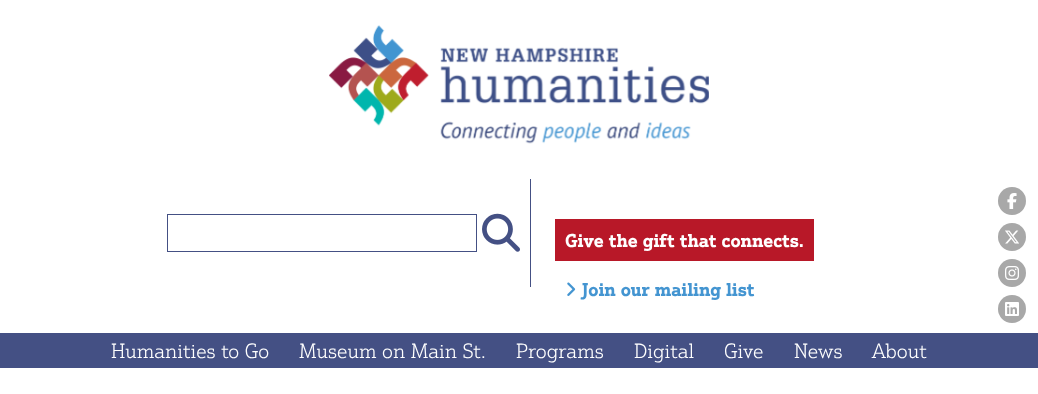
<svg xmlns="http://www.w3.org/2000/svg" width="1038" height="394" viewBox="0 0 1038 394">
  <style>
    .t1 { font: bold 18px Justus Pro; fill: #fff; }
    .t2 { font: bold 18px Justus Pro; fill: #4495d1; }
    .t3 { font: 300 20px Justus Pro; fill: #fff; }
  </style>
  <rect width="100%" height="100%" fill="#fff"/>
  <image x="329" y="25" width="380" height="119" href="images/1.png"/>
  <rect x="530" y="179" width="1" height="108" fill="#445084"/>
  <rect x="167.5" y="214.5" width="309" height="37" fill="none" stroke="#445084"/>
  <image x="482" y="213" width="38" height="39" href="images/2.png"/>
  <rect x="555" y="219" width="259" height="42" fill="#b81828"/>
  <text x="565" y="247" class="t1">Give the gift that connects.</text>
  <image x="567" y="282" width="9" height="14" href="images/3.png"/>
  <text x="582" y="296" class="t2">Join our mailing list</text>
  <circle cx="1012" cy="201" r="14" fill="#a8a8a8"/>
  <image x="1007" y="193" width="10" height="16" href="images/4.png"/>
  <circle cx="1012" cy="237" r="14" fill="#a8a8a8"/>
  <image x="1005" y="230" width="14" height="14" href="images/5.png"/>
  <circle cx="1012" cy="273" r="14" fill="#a8a8a8"/>
  <image x="1005" y="266" width="14" height="14" href="images/6.png"/>
  <circle cx="1012" cy="309" r="14" fill="#a8a8a8"/>
  <image x="1005" y="302" width="14" height="14" href="images/7.png"/>
  <rect x="0" y="333" width="1038" height="35" fill="#445084"/>
  <text x="111" y="358" class="t3">Humanities to Go</text>
  <text x="299" y="358" class="t3">Museum on Main St.</text>
  <text x="516" y="358" class="t3">Programs</text>
  <text x="634" y="358" class="t3">Digital</text>
  <text x="724" y="358" class="t3">Give</text>
  <text x="794" y="358" class="t3">News</text>
  <text x="872" y="358" class="t3">About</text>
</svg>
